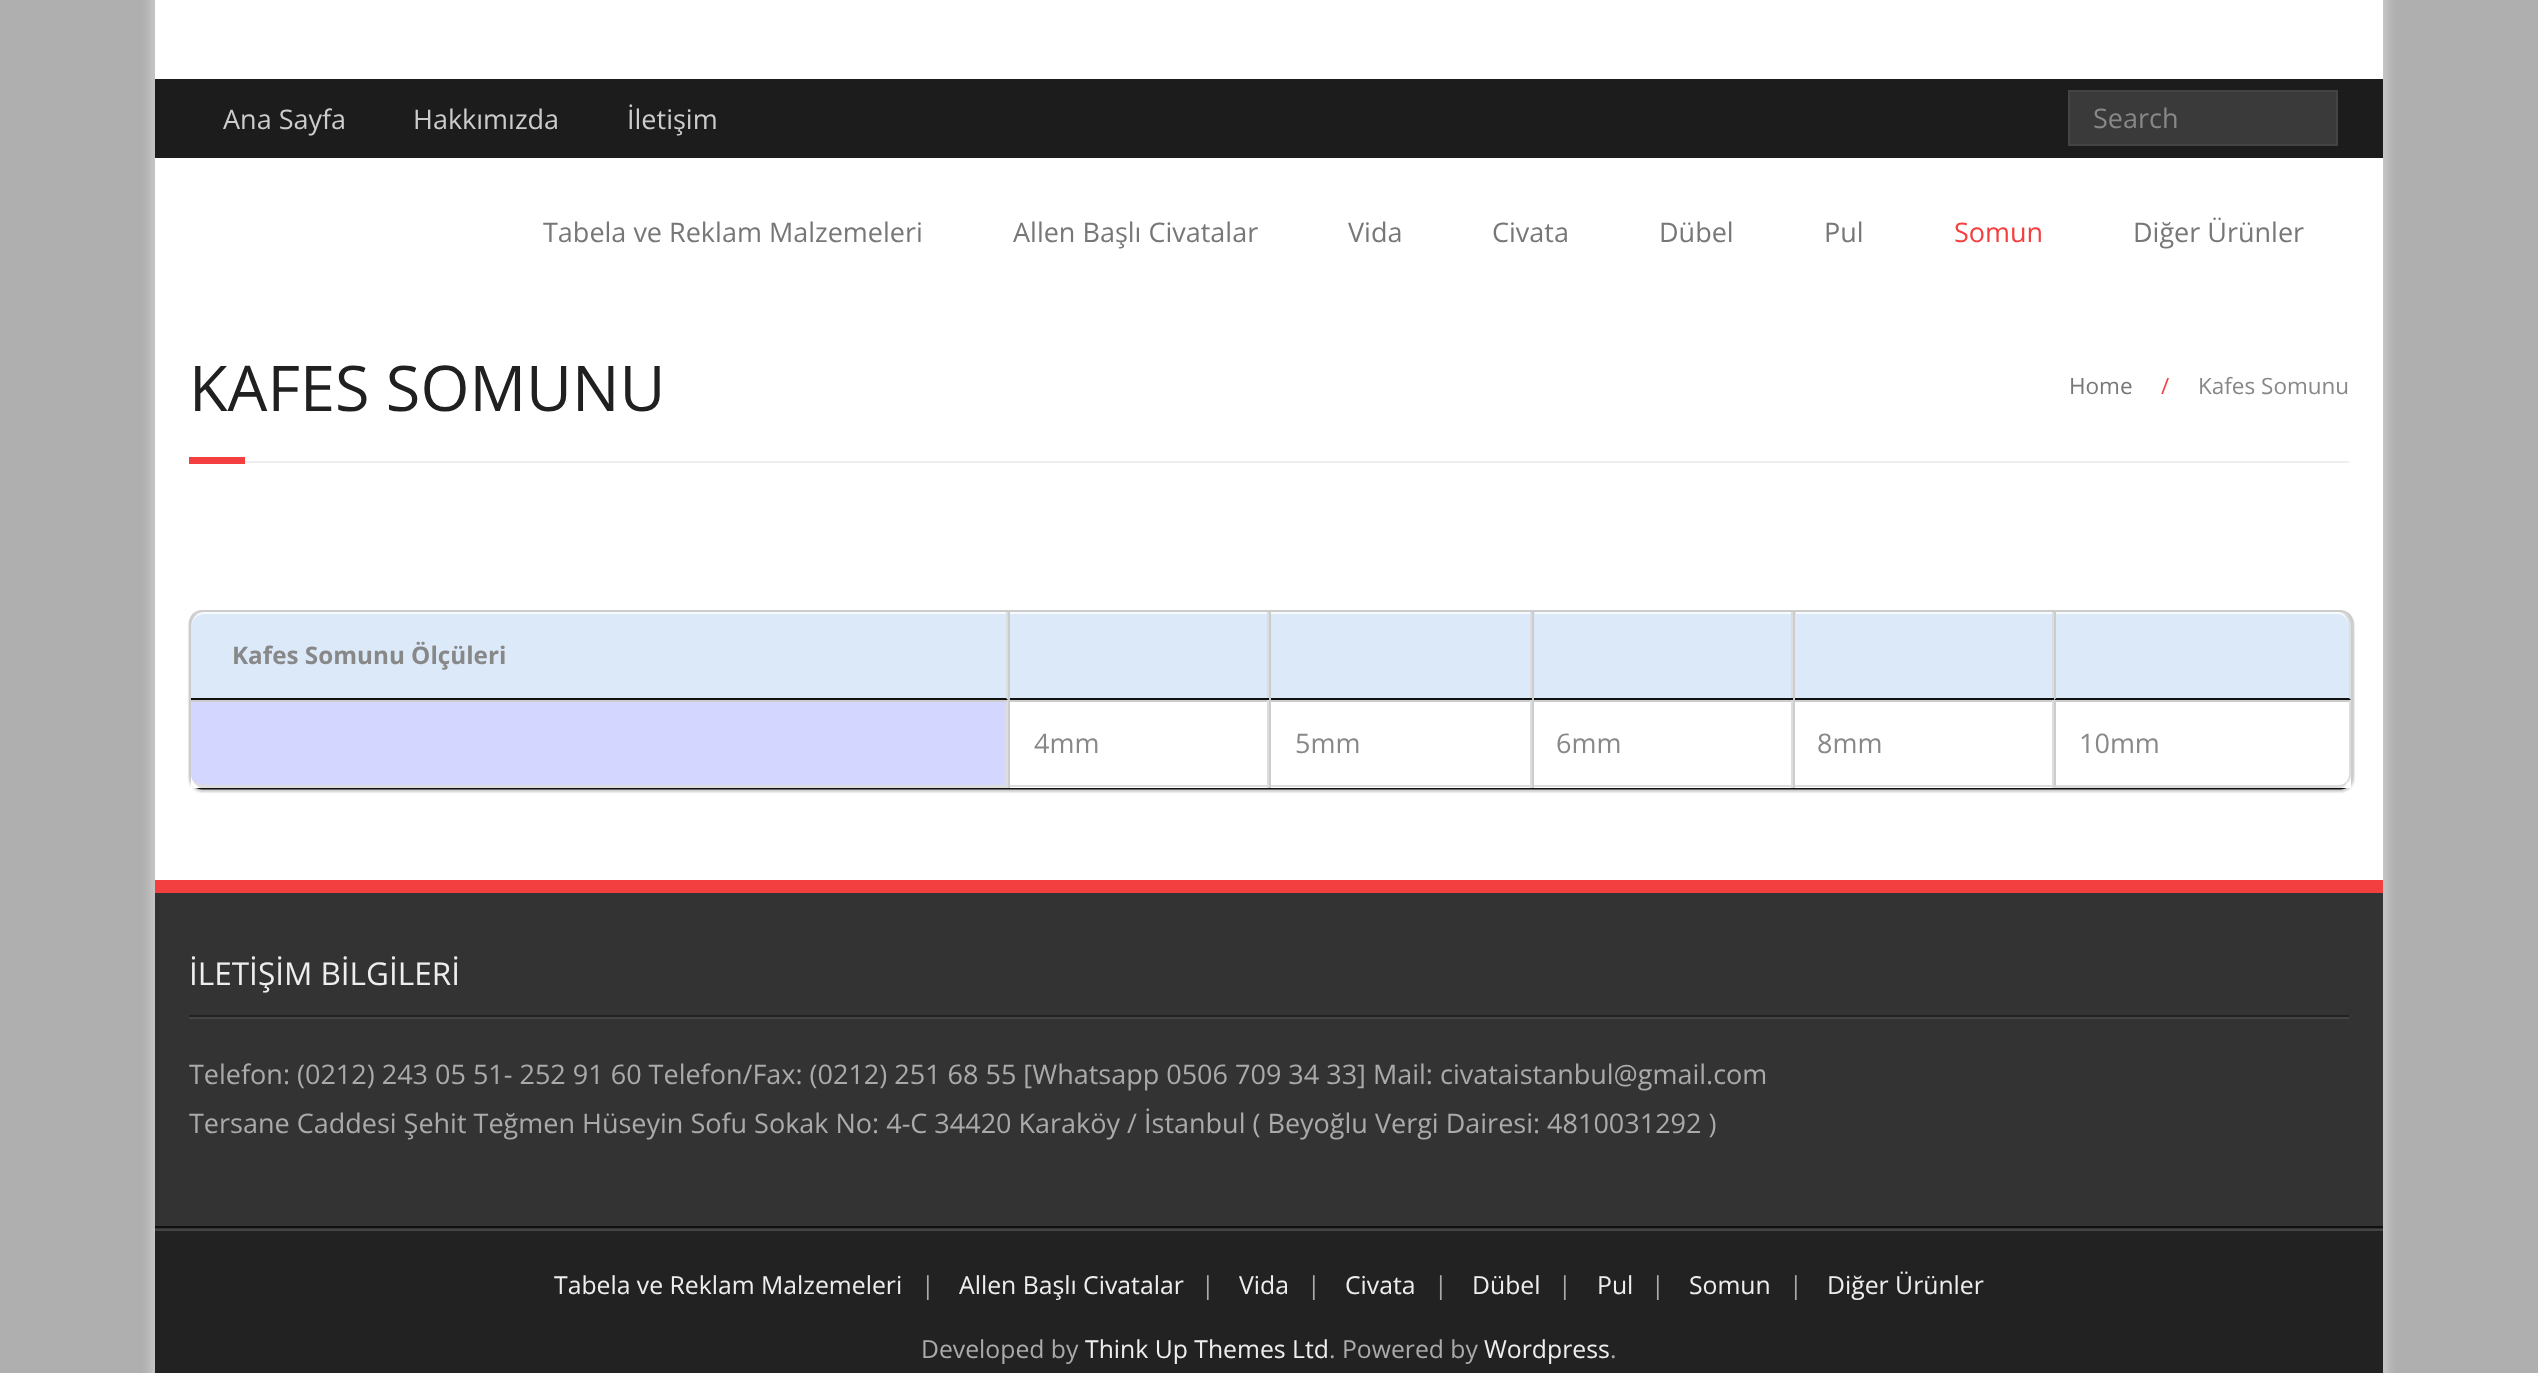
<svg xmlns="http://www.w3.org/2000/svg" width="2538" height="1373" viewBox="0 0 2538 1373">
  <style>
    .t1 { font: 27px Open Sans; fill: #ccc; }
    .t2 { font: 27px Open Sans; fill: #888; }
    .t3 { font: 27px Open Sans; fill: #777; }
    .t4 { font: 27px Open Sans; fill: #f33f3f; }
    .t5 { font: 63px Open Sans; fill: #202020; }
    .t6 { font: 22.5px Open Sans; fill: #777; }
    .t7 { font: 22.5px Open Sans; fill: #f33f3f; }
    .t8 { font: 22.5px Open Sans; fill: #888; }
    .t9 { font: bold 24.25px Open Sans; fill: #888; }
    .t10 { font: 31.5px Open Sans; fill: #eee; }
    .t11 { font: 27px Open Sans; fill: #aaa; }
    .t12 { font: 24.75px Open Sans; fill: #eee; }
    .t13 { font: 24.75px Open Sans; fill: #aaa; }
  </style>
  <rect width="100%" height="100%" fill="#afafaf"/>
  <rect x="151" y="-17" width="2236" height="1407" fill="#ccc" filter="blur(5.5px)"/>
  <rect x="155" y="0" width="2228" height="880" fill="#fff"/>
  <rect x="155" y="79" width="2228" height="79" fill="#1c1c1c"/>
  <text x="223" y="129" class="t1">Ana Sayfa</text>
  <text x="413" y="129" class="t1">Hakkımızda</text>
  <text x="627" y="129" class="t1">İletişim</text>
  <rect x="2069" y="91" width="268" height="54" fill="#3a3a3a" stroke="#444" stroke-width="2"/>
  <text x="2093" y="128" class="t2">Search</text>
  <text x="543" y="242" class="t3">Tabela ve Reklam Malzemeleri</text>
  <text x="1013" y="242" class="t3">Allen Başlı Civatalar</text>
  <text x="1348" y="242" class="t3">Vida</text>
  <text x="1492" y="242" class="t3">Civata</text>
  <text x="1659" y="242" class="t3">Dübel</text>
  <text x="1824" y="242" class="t3">Pul</text>
  <text x="1954" y="242" class="t4">Somun</text>
  <text x="2133" y="242" class="t3">Diğer Ürünler</text>
  <text x="189" y="411" class="t5">KAFES SOMUNU</text>
  <text x="2069" y="394" class="t6">Home</text>
  <text x="2161" y="394" class="t7">/</text>
  <text x="2198" y="394" class="t8">Kafes Somunu</text>
  <rect x="189" y="457" width="56" height="7" fill="#f33f3f"/>
  <rect x="245" y="461" width="2104" height="2" fill="#eee"/>
  <rect x="189" y="612" width="2165" height="180" rx="14" fill="#ccc" filter="blur(1px)"/>
  <path d="M2349 785C2346.5 787.5 2343.5 788.5 2340 788.5H202.5C199 788.5 196 787.5 193.5 785" fill="none" stroke="#111" stroke-width="2.2"/>
  <path d="M193.5 785C191.5 782.5 190 779.5 190 776V623C190 620 191.5 617 193.5 614.5C196 612 199 611 202.5 611H2340C2343.5 611 2346.5 612 2349 614.5C2351 617 2352.5 620 2352.5 623V776C2352.5 779.5 2351 782.5 2349 785" fill="none" stroke="#ccc" stroke-width="2.2"/>
  <path d="M205 612H1008V700H191V626C191 618.5 197.5 612 205 612Z" fill="#dce9f9"/>
  <path d="M205 614H1006V612H205C196 612 191 620 191 628C191 620 197 614 205 614Z" fill="#ffffffcc"/>
  <path d="M1008 612H1006V698L1008 700Z" fill="#ddd"/>
  <path d="M1008 700H191V698H1006Z" fill="#111"/>
  <text x="232" y="664" class="t9">Kafes Somunu Ölçüleri</text>
  <rect x="1010" y="614" width="257" height="84" fill="#dce9f9"/>
  <rect x="1010" y="612" width="257" height="2" fill="#f8fbfe"/>
  <rect x="1267" y="612" width="2" height="88" fill="#ddd"/>
  <rect x="1008" y="698" width="261" height="2" fill="#111"/>
  <rect x="1008" y="612" width="2" height="88" fill="#ccc"/>
  <rect x="1271" y="614" width="259" height="84" fill="#dce9f9"/>
  <rect x="1271" y="612" width="259" height="2" fill="#f8fbfe"/>
  <rect x="1530" y="612" width="2" height="88" fill="#ddd"/>
  <rect x="1269" y="698" width="263" height="2" fill="#111"/>
  <rect x="1269" y="612" width="2" height="88" fill="#ccc"/>
  <rect x="1534" y="612" width="257" height="86" fill="#dce9f9"/>
  <rect x="1535" y="612" width="256" height="2" fill="#f8fbfe"/>
  <rect x="1791" y="612" width="2" height="88" fill="#ddd"/>
  <rect x="1532" y="698" width="261" height="2" fill="#111"/>
  <rect x="1532" y="612" width="2" height="88" fill="#ccc"/>
  <rect x="1795" y="612" width="257" height="86" fill="#dce9f9"/>
  <rect x="1796" y="612" width="256" height="2" fill="#f8fbfe"/>
  <rect x="2052" y="612" width="2" height="88" fill="#ddd"/>
  <rect x="1793" y="698" width="261" height="2" fill="#111"/>
  <rect x="1793" y="612" width="2" height="88" fill="#ccc"/>
  <path d="M2054 612H2337C2344.5 612 2351 618.5 2351 626V700H2054Z" fill="#dce9f9"/>
  <path d="M2056 612V614H2338C2344 614 2349 620 2349 628C2349 621 2346 612 2338 612Z" fill="#ffffffcc"/>
  <path d="M2349 698V626C2349 618 2344 612 2338 612C2345 612 2351 618 2351 626V700Z" fill="#ddd"/>
  <path d="M2351 700H2054L2056 698H2349Z" fill="#111"/>
  <path d="M2054 700L2056 698V612H2054Z" fill="#ccc"/>
  <rect x="191" y="700" width="2160" height="88" fill="#fff"/>
  <path d="M191 700H1008V788H205C197.5 788 191 781.5 191 774Z" fill="#d3d6ff"/>
  <path d="M191 702V700H1008L1006 702Z" fill="#ccc"/>
  <path d="M1006 702L1008 700V788L1006 785Z" fill="#ddd"/>
  <path d="M1008 788H201C197 787 191 780 191 776C192 781 198 785 205 785H1006Z" fill="#ddd"/>
  <rect x="1008" y="700" width="1046" height="2" fill="#ccc"/>
  <rect x="1267" y="700" width="2" height="88" fill="#ddd"/>
  <rect x="1008" y="785" width="261" height="2" fill="#ddd"/>
  <rect x="1008" y="700" width="2" height="88" fill="#ccc"/>
  <text x="1034" y="753" class="t2">4mm</text>
  <rect x="1530" y="700" width="2" height="88" fill="#ddd"/>
  <rect x="1269" y="785" width="263" height="2" fill="#ddd"/>
  <rect x="1269" y="700" width="2" height="88" fill="#ccc"/>
  <text x="1295" y="753" class="t2">5mm</text>
  <rect x="1791" y="700" width="2" height="88" fill="#ddd"/>
  <rect x="1532" y="785" width="261" height="2" fill="#ddd"/>
  <rect x="1532" y="700" width="2" height="88" fill="#ccc"/>
  <text x="1556" y="753" class="t2">6mm</text>
  <rect x="2052" y="700" width="2" height="88" fill="#ddd"/>
  <rect x="1793" y="785" width="261" height="2" fill="#ddd"/>
  <rect x="1793" y="700" width="2" height="88" fill="#ccc"/>
  <text x="1817" y="753" class="t2">8mm</text>
  <path d="M2351 700H2054L2056 702H2349Z" fill="#ccc"/>
  <path d="M2347 783C2350 781 2351 777 2351 774V700L2349 702V774C2349 777 2348 780 2346 782Z" fill="#ddd"/>
  <path d="M2347 783C2346 785 2344 787 2341 788H2054L2057 785H2338C2341 785 2344 784 2346 782Z" fill="#ddd"/>
  <path d="M2056 702L2054 700V788L2057 785H2056Z" fill="#ccc"/>
  <text x="2079" y="753" class="t2">10mm</text>
  <rect x="155" y="893" width="2228" height="336" fill="#333"/>
  <rect x="155" y="880" width="2228" height="13" fill="#f33f3f"/>
  <rect x="155" y="1226" width="2228" height="2" fill="#111"/>
  <rect x="189" y="1017" width="2160" height="2" fill="#444"/>
  <rect x="189" y="1015" width="2160" height="2" fill="#222"/>
  <text x="189" y="985" class="t10">İLETİŞİM BİLGİLERİ</text>
  <text x="189" y="1084" class="t11">Telefon: (0212) 243 05 51- 252 91 60 Telefon/Fax: (0212) 251 68 55 [Whatsapp 0506 709 34 33] Mail: civataistanbul@gmail.com</text>
  <text x="189" y="1133" class="t11">Tersane Caddesi Şehit Teğmen Hüseyin Sofu Sokak No: 4-C 34420 Karaköy / İstanbul ( Beyoğlu Vergi Dairesi: 4810031292 )</text>
  <rect x="155" y="1231" width="2228" height="142" fill="#222"/>
  <rect x="155" y="1229" width="2228" height="2" fill="#444"/>
  <text x="554" y="1294" class="t12">Tabela ve Reklam Malzemeleri</text>
  <text x="921" y="1294" class="t13">|</text>
  <text x="959" y="1294" class="t12">Allen Başlı Civatalar</text>
  <text x="1201" y="1294" class="t13">|</text>
  <text x="1239" y="1294" class="t12">Vida</text>
  <text x="1307" y="1294" class="t13">|</text>
  <text x="1345" y="1294" class="t12">Civata</text>
  <text x="1434" y="1294" class="t13">|</text>
  <text x="1472" y="1294" class="t12">Dübel</text>
  <text x="1558" y="1294" class="t13">|</text>
  <text x="1597" y="1294" class="t12">Pul</text>
  <text x="1651" y="1294" class="t13">|</text>
  <text x="1689" y="1294" class="t12">Somun</text>
  <text x="1789" y="1294" class="t13">|</text>
  <text x="1827" y="1294" class="t12">Diğer Ürünler</text>
  <text x="921" y="1358" class="t13">Developed by</text>
  <text x="1085" y="1358" class="t12">Think Up Themes Ltd</text>
  <text x="1329" y="1358" class="t13">. Powered by</text>
  <text x="1484" y="1358" class="t12">Wordpress</text>
  <text x="1610" y="1358" class="t13">.</text>
</svg>
